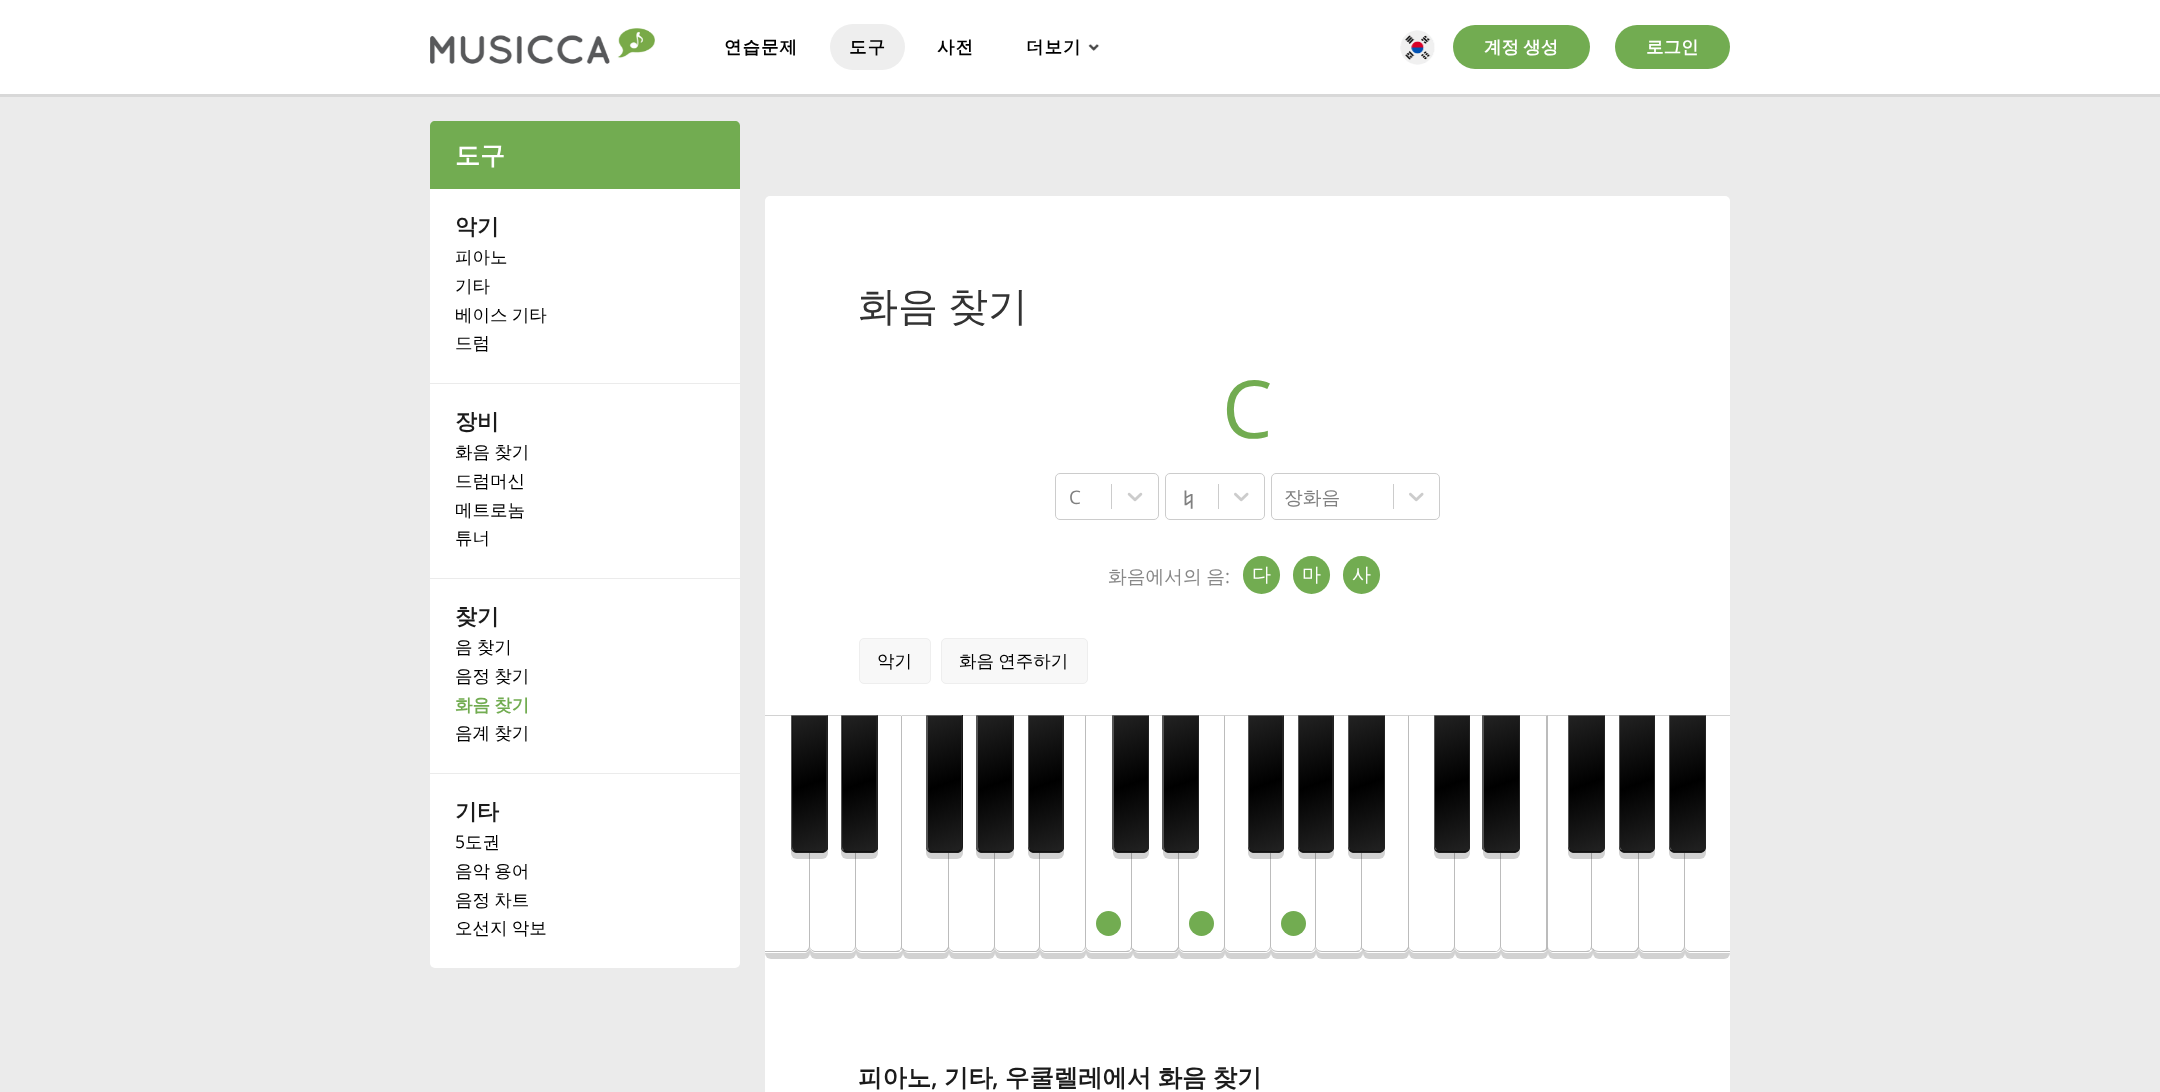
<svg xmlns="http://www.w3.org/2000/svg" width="2160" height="1092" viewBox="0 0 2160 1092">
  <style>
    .t1 { font: bold 17.5px WenQuanYi Zen Hei; letter-spacing: 1px; fill: #000; }
    .t2 { font: bold 17.5px WenQuanYi Zen Hei; fill: #fff; }
    .t3 { font: bold 25px WenQuanYi Zen Hei; fill: #fff; }
    .t4 { font: bold 22px WenQuanYi Zen Hei; fill: #1b1b1b; }
    .t5 { font: 500 17.5px WenQuanYi Zen Hei; fill: #000; }
    .t6 { font: bold 17.5px WenQuanYi Zen Hei; fill: #72ac51; }
    .t7 { font: 17.5px Open Sans; fill: #000; }
    .t8 { font: 500 40px WenQuanYi Zen Hei; fill: #333; }
    .t9 { font: 80px Open Sans; fill: #72ac51; }
    .t10 { font: 18.75px Open Sans; fill: #808080; }
    .t11 { font: 500 22px WenQuanYi Zen Hei; fill: #808080; }
    .t12 { font: 500 18.75px WenQuanYi Zen Hei; fill: #808080; }
    .t13 { font: 500 18.75px WenQuanYi Zen Hei; fill: #888; }
    .t14 { font: 18.75px Open Sans; fill: #888; }
    .t15 { font: 500 19px WenQuanYi Zen Hei; fill: #fff; }
    .t16 { font: bold 24.4px WenQuanYi Zen Hei; fill: #1b1b1b; }
    .t17 { font: 600 24.4px Open Sans; fill: #1b1b1b; }
  </style>
  <defs>
    <clipPath id="clip1"><path d="M791 715H828V847C828 850.5 825.5 853 822 853H797C793.5 853 791 850.5 791 847Z"/></clipPath>
    <linearGradient id="g1" gradientUnits="userSpaceOnUse" x1="799" y1="849" x2="752" y2="719"><stop offset="0" stop-color="#222"/><stop offset="0.5" stop-color="#000"/><stop offset="1" stop-color="#222"/></linearGradient>
    <linearGradient id="g2" gradientUnits="userSpaceOnUse" x1="833" y1="849" x2="786" y2="719"><stop offset="0" stop-color="#222"/><stop offset="0.5" stop-color="#000"/><stop offset="1" stop-color="#222"/></linearGradient>
    <linearGradient id="g3" gradientUnits="userSpaceOnUse" x1="867" y1="849" x2="819" y2="719"><stop offset="0" stop-color="#222"/><stop offset="0.5" stop-color="#000"/><stop offset="1" stop-color="#222"/></linearGradient>
    <linearGradient id="g4" gradientUnits="userSpaceOnUse" x1="799" y1="984" x2="752" y2="854"><stop offset="0" stop-color="#222"/><stop offset="0.5" stop-color="#000"/><stop offset="1" stop-color="#222"/></linearGradient>
    <linearGradient id="g5" gradientUnits="userSpaceOnUse" x1="833" y1="984" x2="786" y2="854"><stop offset="0" stop-color="#222"/><stop offset="0.5" stop-color="#000"/><stop offset="1" stop-color="#222"/></linearGradient>
    <linearGradient id="g6" gradientUnits="userSpaceOnUse" x1="867" y1="984" x2="819" y2="854"><stop offset="0" stop-color="#222"/><stop offset="0.5" stop-color="#000"/><stop offset="1" stop-color="#222"/></linearGradient>
    <clipPath id="clip2"><path d="M841 715H878V847C878 850.5 875.5 853 872 853H847C843.5 853 841 850.5 841 847Z"/></clipPath>
    <linearGradient id="g7" gradientUnits="userSpaceOnUse" x1="849" y1="849" x2="802" y2="719"><stop offset="0" stop-color="#222"/><stop offset="0.5" stop-color="#000"/><stop offset="1" stop-color="#222"/></linearGradient>
    <linearGradient id="g8" gradientUnits="userSpaceOnUse" x1="883" y1="849" x2="836" y2="719"><stop offset="0" stop-color="#222"/><stop offset="0.5" stop-color="#000"/><stop offset="1" stop-color="#222"/></linearGradient>
    <linearGradient id="g9" gradientUnits="userSpaceOnUse" x1="917" y1="849" x2="869" y2="719"><stop offset="0" stop-color="#222"/><stop offset="0.5" stop-color="#000"/><stop offset="1" stop-color="#222"/></linearGradient>
    <linearGradient id="g10" gradientUnits="userSpaceOnUse" x1="849" y1="984" x2="802" y2="854"><stop offset="0" stop-color="#222"/><stop offset="0.5" stop-color="#000"/><stop offset="1" stop-color="#222"/></linearGradient>
    <linearGradient id="g11" gradientUnits="userSpaceOnUse" x1="883" y1="984" x2="836" y2="854"><stop offset="0" stop-color="#222"/><stop offset="0.5" stop-color="#000"/><stop offset="1" stop-color="#222"/></linearGradient>
    <linearGradient id="g12" gradientUnits="userSpaceOnUse" x1="917" y1="984" x2="869" y2="854"><stop offset="0" stop-color="#222"/><stop offset="0.5" stop-color="#000"/><stop offset="1" stop-color="#222"/></linearGradient>
    <linearGradient id="g13" gradientUnits="userSpaceOnUse" x1="1002" y1="714" x2="954" y2="584"><stop offset="0" stop-color="#222"/><stop offset="0.5" stop-color="#000"/><stop offset="1" stop-color="#222"/></linearGradient>
    <clipPath id="clip3"><path d="M926 715H963V847C963 850.5 960.5 853 957 853H932C928.5 853 926 850.5 926 847Z"/></clipPath>
    <linearGradient id="g14" gradientUnits="userSpaceOnUse" x1="934" y1="849" x2="887" y2="719"><stop offset="0" stop-color="#222"/><stop offset="0.5" stop-color="#000"/><stop offset="1" stop-color="#222"/></linearGradient>
    <linearGradient id="g15" gradientUnits="userSpaceOnUse" x1="968" y1="849" x2="921" y2="719"><stop offset="0" stop-color="#222"/><stop offset="0.5" stop-color="#000"/><stop offset="1" stop-color="#222"/></linearGradient>
    <linearGradient id="g16" gradientUnits="userSpaceOnUse" x1="1002" y1="849" x2="954" y2="719"><stop offset="0" stop-color="#222"/><stop offset="0.5" stop-color="#000"/><stop offset="1" stop-color="#222"/></linearGradient>
    <linearGradient id="g17" gradientUnits="userSpaceOnUse" x1="934" y1="984" x2="887" y2="854"><stop offset="0" stop-color="#222"/><stop offset="0.5" stop-color="#000"/><stop offset="1" stop-color="#222"/></linearGradient>
    <linearGradient id="g18" gradientUnits="userSpaceOnUse" x1="968" y1="984" x2="921" y2="854"><stop offset="0" stop-color="#222"/><stop offset="0.5" stop-color="#000"/><stop offset="1" stop-color="#222"/></linearGradient>
    <linearGradient id="g19" gradientUnits="userSpaceOnUse" x1="1002" y1="984" x2="954" y2="854"><stop offset="0" stop-color="#222"/><stop offset="0.5" stop-color="#000"/><stop offset="1" stop-color="#222"/></linearGradient>
    <clipPath id="clip4"><path d="M976 715H1014V847C1014 850.5 1011.5 853 1008 853H982C978.5 853 976 850.5 976 847Z"/></clipPath>
    <linearGradient id="g20" gradientUnits="userSpaceOnUse" x1="984" y1="849" x2="936" y2="719"><stop offset="0" stop-color="#222"/><stop offset="0.5" stop-color="#000"/><stop offset="1" stop-color="#222"/></linearGradient>
    <linearGradient id="g21" gradientUnits="userSpaceOnUse" x1="1019" y1="849" x2="971" y2="719"><stop offset="0" stop-color="#222"/><stop offset="0.5" stop-color="#000"/><stop offset="1" stop-color="#222"/></linearGradient>
    <linearGradient id="g22" gradientUnits="userSpaceOnUse" x1="1054" y1="849" x2="1006" y2="719"><stop offset="0" stop-color="#222"/><stop offset="0.5" stop-color="#000"/><stop offset="1" stop-color="#222"/></linearGradient>
    <linearGradient id="g23" gradientUnits="userSpaceOnUse" x1="984" y1="984" x2="936" y2="854"><stop offset="0" stop-color="#222"/><stop offset="0.5" stop-color="#000"/><stop offset="1" stop-color="#222"/></linearGradient>
    <linearGradient id="g24" gradientUnits="userSpaceOnUse" x1="1019" y1="984" x2="971" y2="854"><stop offset="0" stop-color="#222"/><stop offset="0.5" stop-color="#000"/><stop offset="1" stop-color="#222"/></linearGradient>
    <clipPath id="clip5"><path d="M1028 715H1064V847C1064 850.5 1061.5 853 1058 853H1034C1030.5 853 1028 850.5 1028 847Z"/></clipPath>
    <linearGradient id="g25" gradientUnits="userSpaceOnUse" x1="1036" y1="849" x2="988" y2="719"><stop offset="0" stop-color="#222"/><stop offset="0.5" stop-color="#000"/><stop offset="1" stop-color="#222"/></linearGradient>
    <linearGradient id="g26" gradientUnits="userSpaceOnUse" x1="1069" y1="849" x2="1022" y2="719"><stop offset="0" stop-color="#222"/><stop offset="0.5" stop-color="#000"/><stop offset="1" stop-color="#222"/></linearGradient>
    <linearGradient id="g27" gradientUnits="userSpaceOnUse" x1="1103" y1="849" x2="1056" y2="719"><stop offset="0" stop-color="#222"/><stop offset="0.5" stop-color="#000"/><stop offset="1" stop-color="#222"/></linearGradient>
    <linearGradient id="g28" gradientUnits="userSpaceOnUse" x1="1069" y1="984" x2="1022" y2="854"><stop offset="0" stop-color="#222"/><stop offset="0.5" stop-color="#000"/><stop offset="1" stop-color="#222"/></linearGradient>
    <linearGradient id="g29" gradientUnits="userSpaceOnUse" x1="1154" y1="849" x2="1107" y2="719"><stop offset="0" stop-color="#222"/><stop offset="0.5" stop-color="#000"/><stop offset="1" stop-color="#222"/></linearGradient>
    <clipPath id="clip6"><path d="M1113 715H1149V847C1149 850.5 1146.5 853 1143 853H1119C1115.5 853 1113 850.5 1113 847Z"/></clipPath>
    <linearGradient id="g30" gradientUnits="userSpaceOnUse" x1="1188" y1="849" x2="1141" y2="719"><stop offset="0" stop-color="#222"/><stop offset="0.5" stop-color="#000"/><stop offset="1" stop-color="#222"/></linearGradient>
    <linearGradient id="g31" gradientUnits="userSpaceOnUse" x1="1154" y1="984" x2="1107" y2="854"><stop offset="0" stop-color="#222"/><stop offset="0.5" stop-color="#000"/><stop offset="1" stop-color="#222"/></linearGradient>
    <linearGradient id="g32" gradientUnits="userSpaceOnUse" x1="1204" y1="849" x2="1157" y2="719"><stop offset="0" stop-color="#222"/><stop offset="0.5" stop-color="#000"/><stop offset="1" stop-color="#222"/></linearGradient>
    <clipPath id="clip7"><path d="M1163 715H1199V847C1199 850.5 1196.5 853 1193 853H1169C1165.5 853 1163 850.5 1163 847Z"/></clipPath>
    <linearGradient id="g33" gradientUnits="userSpaceOnUse" x1="1238" y1="849" x2="1191" y2="719"><stop offset="0" stop-color="#222"/><stop offset="0.5" stop-color="#000"/><stop offset="1" stop-color="#222"/></linearGradient>
    <linearGradient id="g34" gradientUnits="userSpaceOnUse" x1="1204" y1="984" x2="1157" y2="854"><stop offset="0" stop-color="#222"/><stop offset="0.5" stop-color="#000"/><stop offset="1" stop-color="#222"/></linearGradient>
    <clipPath id="clip8"><path d="M1248 715H1284V847C1284 850.5 1281.5 853 1278 853H1254C1250.5 853 1248 850.5 1248 847Z"/></clipPath>
    <linearGradient id="g35" gradientUnits="userSpaceOnUse" x1="1256" y1="849" x2="1208" y2="719"><stop offset="0" stop-color="#222"/><stop offset="0.5" stop-color="#000"/><stop offset="1" stop-color="#222"/></linearGradient>
    <linearGradient id="g36" gradientUnits="userSpaceOnUse" x1="1289" y1="849" x2="1242" y2="719"><stop offset="0" stop-color="#222"/><stop offset="0.5" stop-color="#000"/><stop offset="1" stop-color="#222"/></linearGradient>
    <linearGradient id="g37" gradientUnits="userSpaceOnUse" x1="1323" y1="849" x2="1276" y2="719"><stop offset="0" stop-color="#222"/><stop offset="0.5" stop-color="#000"/><stop offset="1" stop-color="#222"/></linearGradient>
    <linearGradient id="g38" gradientUnits="userSpaceOnUse" x1="1289" y1="984" x2="1242" y2="854"><stop offset="0" stop-color="#222"/><stop offset="0.5" stop-color="#000"/><stop offset="1" stop-color="#222"/></linearGradient>
    <clipPath id="clip9"><path d="M1298 715H1334V847C1334 850.5 1331.5 853 1328 853H1304C1300.5 853 1298 850.5 1298 847Z"/></clipPath>
    <linearGradient id="g39" gradientUnits="userSpaceOnUse" x1="1306" y1="849" x2="1258" y2="719"><stop offset="0" stop-color="#222"/><stop offset="0.5" stop-color="#000"/><stop offset="1" stop-color="#222"/></linearGradient>
    <linearGradient id="g40" gradientUnits="userSpaceOnUse" x1="1339" y1="849" x2="1292" y2="719"><stop offset="0" stop-color="#222"/><stop offset="0.5" stop-color="#000"/><stop offset="1" stop-color="#222"/></linearGradient>
    <linearGradient id="g41" gradientUnits="userSpaceOnUse" x1="1373" y1="849" x2="1326" y2="719"><stop offset="0" stop-color="#222"/><stop offset="0.5" stop-color="#000"/><stop offset="1" stop-color="#222"/></linearGradient>
    <linearGradient id="g42" gradientUnits="userSpaceOnUse" x1="1339" y1="984" x2="1292" y2="854"><stop offset="0" stop-color="#222"/><stop offset="0.5" stop-color="#000"/><stop offset="1" stop-color="#222"/></linearGradient>
    <clipPath id="clip10"><path d="M1348 715H1385V847C1385 850.5 1382.5 853 1379 853H1354C1350.5 853 1348 850.5 1348 847Z"/></clipPath>
    <linearGradient id="g43" gradientUnits="userSpaceOnUse" x1="1355" y1="849" x2="1308" y2="719"><stop offset="0" stop-color="#222"/><stop offset="0.5" stop-color="#000"/><stop offset="1" stop-color="#222"/></linearGradient>
    <linearGradient id="g44" gradientUnits="userSpaceOnUse" x1="1390" y1="849" x2="1343" y2="719"><stop offset="0" stop-color="#222"/><stop offset="0.5" stop-color="#000"/><stop offset="1" stop-color="#222"/></linearGradient>
    <linearGradient id="g45" gradientUnits="userSpaceOnUse" x1="1425" y1="849" x2="1378" y2="719"><stop offset="0" stop-color="#222"/><stop offset="0.5" stop-color="#000"/><stop offset="1" stop-color="#222"/></linearGradient>
    <linearGradient id="g46" gradientUnits="userSpaceOnUse" x1="1390" y1="984" x2="1343" y2="854"><stop offset="0" stop-color="#222"/><stop offset="0.5" stop-color="#000"/><stop offset="1" stop-color="#222"/></linearGradient>
    <clipPath id="clip11"><path d="M1434 715H1470V847C1470 850.5 1467.5 853 1464 853H1440C1436.5 853 1434 850.5 1434 847Z"/></clipPath>
    <linearGradient id="g47" gradientUnits="userSpaceOnUse" x1="1442" y1="849" x2="1394" y2="719"><stop offset="0" stop-color="#222"/><stop offset="0.5" stop-color="#000"/><stop offset="1" stop-color="#222"/></linearGradient>
    <linearGradient id="g48" gradientUnits="userSpaceOnUse" x1="1476" y1="849" x2="1428" y2="719"><stop offset="0" stop-color="#222"/><stop offset="0.5" stop-color="#000"/><stop offset="1" stop-color="#222"/></linearGradient>
    <linearGradient id="g49" gradientUnits="userSpaceOnUse" x1="1509" y1="849" x2="1462" y2="719"><stop offset="0" stop-color="#222"/><stop offset="0.5" stop-color="#000"/><stop offset="1" stop-color="#222"/></linearGradient>
    <linearGradient id="g50" gradientUnits="userSpaceOnUse" x1="1476" y1="984" x2="1428" y2="854"><stop offset="0" stop-color="#222"/><stop offset="0.5" stop-color="#000"/><stop offset="1" stop-color="#222"/></linearGradient>
    <linearGradient id="g51" gradientUnits="userSpaceOnUse" x1="1525" y1="849" x2="1478" y2="719"><stop offset="0" stop-color="#222"/><stop offset="0.5" stop-color="#000"/><stop offset="1" stop-color="#222"/></linearGradient>
    <clipPath id="clip12"><path d="M1483 715H1520V847C1520 850.5 1517.5 853 1514 853H1489C1485.5 853 1483 850.5 1483 847Z"/></clipPath>
    <linearGradient id="g52" gradientUnits="userSpaceOnUse" x1="1560" y1="849" x2="1513" y2="719"><stop offset="0" stop-color="#222"/><stop offset="0.5" stop-color="#000"/><stop offset="1" stop-color="#222"/></linearGradient>
    <linearGradient id="g53" gradientUnits="userSpaceOnUse" x1="1525" y1="984" x2="1478" y2="854"><stop offset="0" stop-color="#222"/><stop offset="0.5" stop-color="#000"/><stop offset="1" stop-color="#222"/></linearGradient>
    <clipPath id="clip13"><path d="M1568 715H1605V847C1605 850.5 1602.5 853 1599 853H1574C1570.5 853 1568 850.5 1568 847Z"/></clipPath>
    <linearGradient id="g54" gradientUnits="userSpaceOnUse" x1="1575" y1="849" x2="1528" y2="719"><stop offset="0" stop-color="#222"/><stop offset="0.5" stop-color="#000"/><stop offset="1" stop-color="#222"/></linearGradient>
    <linearGradient id="g55" gradientUnits="userSpaceOnUse" x1="1610" y1="849" x2="1563" y2="719"><stop offset="0" stop-color="#222"/><stop offset="0.5" stop-color="#000"/><stop offset="1" stop-color="#222"/></linearGradient>
    <linearGradient id="g56" gradientUnits="userSpaceOnUse" x1="1645" y1="849" x2="1598" y2="719"><stop offset="0" stop-color="#222"/><stop offset="0.5" stop-color="#000"/><stop offset="1" stop-color="#222"/></linearGradient>
    <linearGradient id="g57" gradientUnits="userSpaceOnUse" x1="1610" y1="984" x2="1563" y2="854"><stop offset="0" stop-color="#222"/><stop offset="0.5" stop-color="#000"/><stop offset="1" stop-color="#222"/></linearGradient>
    <clipPath id="clip14"><path d="M1619 715H1655V847C1655 850.5 1652.5 853 1649 853H1625C1621.5 853 1619 850.5 1619 847Z"/></clipPath>
    <linearGradient id="g58" gradientUnits="userSpaceOnUse" x1="1627" y1="849" x2="1579" y2="719"><stop offset="0" stop-color="#222"/><stop offset="0.5" stop-color="#000"/><stop offset="1" stop-color="#222"/></linearGradient>
    <linearGradient id="g59" gradientUnits="userSpaceOnUse" x1="1661" y1="849" x2="1613" y2="719"><stop offset="0" stop-color="#222"/><stop offset="0.5" stop-color="#000"/><stop offset="1" stop-color="#222"/></linearGradient>
    <linearGradient id="g60" gradientUnits="userSpaceOnUse" x1="1694" y1="849" x2="1647" y2="719"><stop offset="0" stop-color="#222"/><stop offset="0.5" stop-color="#000"/><stop offset="1" stop-color="#222"/></linearGradient>
    <linearGradient id="g61" gradientUnits="userSpaceOnUse" x1="1661" y1="984" x2="1613" y2="854"><stop offset="0" stop-color="#222"/><stop offset="0.5" stop-color="#000"/><stop offset="1" stop-color="#222"/></linearGradient>
    <clipPath id="clip15"><path d="M1669 715H1706V847C1706 850.5 1703.5 853 1700 853H1675C1671.5 853 1669 850.5 1669 847Z"/></clipPath>
    <linearGradient id="g62" gradientUnits="userSpaceOnUse" x1="1676" y1="849" x2="1629" y2="719"><stop offset="0" stop-color="#222"/><stop offset="0.5" stop-color="#000"/><stop offset="1" stop-color="#222"/></linearGradient>
    <linearGradient id="g63" gradientUnits="userSpaceOnUse" x1="1711" y1="849" x2="1664" y2="719"><stop offset="0" stop-color="#222"/><stop offset="0.5" stop-color="#000"/><stop offset="1" stop-color="#222"/></linearGradient>
    <linearGradient id="g64" gradientUnits="userSpaceOnUse" x1="1746" y1="849" x2="1699" y2="719"><stop offset="0" stop-color="#222"/><stop offset="0.5" stop-color="#000"/><stop offset="1" stop-color="#222"/></linearGradient>
    <linearGradient id="g65" gradientUnits="userSpaceOnUse" x1="1711" y1="984" x2="1664" y2="854"><stop offset="0" stop-color="#222"/><stop offset="0.5" stop-color="#000"/><stop offset="1" stop-color="#222"/></linearGradient>
  </defs>
  <rect width="100%" height="100%" fill="#ebebeb"/>
  <rect x="0" y="94" width="2160" height="3" fill="#d8d8d8"/>
  <rect x="0" y="0" width="2160" height="94" fill="#fff"/>
  <image x="430" y="28" width="225" height="36" href="images/1.png"/>
  <text x="724" y="53" class="t1">연습문제</text>
  <rect x="830" y="24" width="75" height="46" rx="23" fill="#eee"/>
  <text x="849" y="53" class="t1">도구</text>
  <text x="937" y="53" class="t1">사전</text>
  <text x="1026" y="53" class="t1">더보기</text>
  <image x="1088" y="44" width="12" height="7" href="images/2.png"/>
  <image x="1400" y="30" width="35" height="35" href="images/3.png"/>
  <rect x="1453" y="25" width="137" height="44" rx="22" fill="#72ac51"/>
  <text x="1484" y="53" word-spacing="-1" class="t2">계정 생성</text>
  <rect x="1615" y="25" width="115" height="44" rx="22" fill="#72ac51"/>
  <text x="1646" y="53" class="t2">로그인</text>
  <rect x="430" y="121" width="310" height="847" rx="5" fill="#fff"/>
  <path d="M435 121H735C738 121 740 123 740 126V189H430V126C430 123 432 121 435 121Z" fill="#72ac51"/>
  <text x="455" y="164" class="t3">도구</text>
  <rect x="430" y="383" width="310" height="1" fill="#ebebeb"/>
  <text x="455" y="234" class="t4">악기</text>
  <text x="455" y="263" class="t5">피아노</text>
  <text x="455" y="292" class="t5">기타</text>
  <text x="455" y="321" word-spacing="-1" class="t5">베이스 기타</text>
  <text x="455" y="349" class="t5">드럼</text>
  <rect x="430" y="578" width="310" height="1" fill="#ebebeb"/>
  <text x="455" y="429" class="t4">장비</text>
  <text x="455" y="458" word-spacing="-1" class="t5">화음 찾기</text>
  <text x="455" y="487" class="t5">드럼머신</text>
  <text x="455" y="516" class="t5">메트로놈</text>
  <text x="455" y="544" class="t5">튜너</text>
  <rect x="430" y="773" width="310" height="1" fill="#ebebeb"/>
  <text x="455" y="624" class="t4">찾기</text>
  <text x="455" y="653" word-spacing="-1" class="t5">음 찾기</text>
  <text x="455" y="682" word-spacing="-1" class="t5">음정 찾기</text>
  <text x="455" y="711" word-spacing="-1" class="t6">화음 찾기</text>
  <text x="455" y="739" word-spacing="-1" class="t5">음계 찾기</text>
  <text x="455" y="819" class="t4">기타</text>
  <text x="455" y="848" class="t7">5</text>
  <text x="465" y="848" class="t5">도권</text>
  <text x="455" y="877" word-spacing="-1" class="t5">음악 용어</text>
  <text x="455" y="906" word-spacing="-1" class="t5">음정 차트</text>
  <text x="455" y="934" word-spacing="-1" class="t5">오선지 악보</text>
  <rect x="765" y="196" width="965" height="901" rx="5" fill="#fff"/>
  <text x="858" y="320" word-spacing="-2" class="t8">화음 찾기</text>
  <text x="1222" y="438" class="t9">C</text>
  <rect x="1055.5" y="473.5" width="103" height="46" rx="4.5" fill="none" stroke="#ccc"/>
  <text x="1069" y="504" class="t10">C</text>
  <rect x="1111" y="484" width="1" height="25" fill="#ccc"/>
  <image x="1127" y="492" width="16" height="10" href="images/4.png"/>
  <rect x="1165.5" y="473.5" width="99" height="46" rx="4.5" fill="none" stroke="#ccc"/>
  <text x="1178" y="507" class="t11">♮</text>
  <rect x="1218" y="484" width="1" height="25" fill="#ccc"/>
  <image x="1234" y="492" width="15" height="10" href="images/5.png"/>
  <rect x="1271.5" y="473.5" width="168" height="46" rx="4.5" fill="none" stroke="#ccc"/>
  <text x="1284" y="504" class="t12">장화음</text>
  <rect x="1393" y="484" width="1" height="25" fill="#ccc"/>
  <image x="1409" y="492" width="15" height="10" href="images/5.png"/>
  <text x="1108" y="583" word-spacing="-1" class="t13">화음에서의 음</text>
  <text x="1225" y="583" class="t14">:</text>
  <rect x="1243" y="556" width="37" height="38" rx="18.5" fill="#72ac51"/>
  <text x="1252" y="581" class="t15">다</text>
  <rect x="1293" y="556" width="37" height="38" rx="18.5" fill="#72ac51"/>
  <text x="1302" y="581" class="t15">마</text>
  <rect x="1343" y="556" width="37" height="38" rx="18.5" fill="#72ac51"/>
  <text x="1352" y="581" class="t15">사</text>
  <rect x="859.5" y="638.5" width="71" height="45" rx="4.5" fill="#f8f8f8" stroke="#eee"/>
  <text x="877" y="667" class="t5">악기</text>
  <rect x="941.5" y="638.5" width="146" height="45" rx="4.5" fill="#f8f8f8" stroke="#eee"/>
  <text x="959" y="667" word-spacing="-1" class="t5">화음 연주하기</text>
  <rect x="765" y="721" width="45" height="238" rx="6" fill="#20202033" filter="blur(0.5px)"/>
  <path d="M765 715H810V947C810 950.5 807.5 953 804 953H765Z" fill="#fff"/>
  <path d="M765 715V716H809L810 715Z" fill="#d2d2d2"/>
  <path d="M810 715L809 716V946C809 948 808 949 807 950L808 951C809 950 810 948 810 946Z" fill="#2020204d"/>
  <path d="M765 951V952H804C805 952 807 952 808 951L807 950C807 951 805 951 804 951Z" fill="#2020204d"/>
  <rect x="810" y="721" width="46" height="238" rx="6" fill="#20202033" filter="blur(0.5px)"/>
  <path d="M810 715H856V947C856 950.5 853.5 953 850 953H816C812.5 953 810 950.5 810 947Z" fill="#fff"/>
  <path d="M810 715V716H855L856 715Z" fill="#d2d2d2"/>
  <path d="M853 950C854 949 855 948 855 946V716L856 715V946C856 948 855 949 854 950Z" fill="#2020204d"/>
  <path d="M810 946C810 949 813 951 816 951H850C851 951 853 951 853 950H854C853 951 852 952 850 952H816C813 952 810 950 810 946Z" fill="#bcbcbc"/>
  <rect x="856" y="721" width="47" height="238" rx="6" fill="#20202033" filter="blur(0.5px)"/>
  <path d="M856 715H903V947C903 950.5 900.5 953 897 953H862C858.5 953 856 950.5 856 947Z" fill="#fff"/>
  <path d="M856 715H902L901 716H856Z" fill="#d2d2d2"/>
  <path d="M900 950C900 949 901 948 901 946V716H902V946C902 948 902 950 900 950Z" fill="#bcbcbc"/>
  <path d="M856 947C857 950 860 951 862 951H896C898 951 899 950 900 950C900 952 898 952 896 952H862C860 952 857 951 856 948Z" fill="#2020204d"/>
  <rect x="903" y="721" width="46" height="238" rx="6" fill="#20202033" filter="blur(0.5px)"/>
  <path d="M903 715H949V947C949 950.5 946.5 953 943 953H909C905.5 953 903 950.5 903 947Z" fill="#fff"/>
  <path d="M902 715H949L948 716H902Z" fill="#d2d2d2"/>
  <path d="M949 715V948L947 951L946 950L948 947V716Z" fill="#2020204d"/>
  <path d="M902 948C904 950 906 951 909 951H942C943 951 945 951 946 950L947 951C946 952 944 952 942 952H909C906 952 904 951 902 949Z" fill="#2020204d"/>
  <rect x="949" y="721" width="46" height="238" rx="6" fill="#20202033" filter="blur(0.5px)"/>
  <path d="M949 715H995V947C995 950.5 992.5 953 989 953H955C951.5 953 949 950.5 949 947Z" fill="#fff"/>
  <path d="M949 715V716H994L995 715Z" fill="#d2d2d2"/>
  <path d="M995 715V946C995 948 994 950 993 951L992 950C993 949 994 948 994 946V716Z" fill="#2020204d"/>
  <path d="M993 951L992 950C992 951 990 951 989 951H955C952 951 949 949 949 946C949 950 952 952 955 952H989C990 952 992 952 993 951Z" fill="#2020204d"/>
  <rect x="995" y="721" width="45" height="238" rx="6" fill="#20202033" filter="blur(0.5px)"/>
  <path d="M995 715H1040V947C1040 950.5 1037.5 953 1034 953H1001C997.5 953 995 950.5 995 947Z" fill="#fff"/>
  <path d="M995 715V716H1039L1040 715Z" fill="#d2d2d2"/>
  <path d="M1040 715L1039 716V946C1039 948 1038 949 1037 950L1038 951C1039 950 1040 948 1040 946Z" fill="#2020204d"/>
  <path d="M995 946C995 949 998 951 1001 951H1034C1035 951 1037 951 1037 950L1038 951C1037 952 1035 952 1034 952H1001C998 952 995 950 995 946Z" fill="#2020204d"/>
  <rect x="1040" y="721" width="46" height="238" rx="6" fill="#20202033" filter="blur(0.5px)"/>
  <path d="M1040 715H1086V947C1086 950.5 1083.5 953 1080 953H1046C1042.5 953 1040 950.5 1040 947Z" fill="#fff"/>
  <path d="M1040 715V716H1085L1086 715Z" fill="#d2d2d2"/>
  <path d="M1083 950C1084 949 1085 948 1085 946V716L1086 715V946C1086 948 1085 949 1084 950Z" fill="#2020204d"/>
  <path d="M1040 946C1040 949 1043 951 1046 951H1080C1081 951 1083 951 1083 950H1084C1083 951 1082 952 1080 952H1046C1043 952 1040 950 1040 946Z" fill="#bcbcbc"/>
  <rect x="1086" y="721" width="47" height="238" rx="6" fill="#20202033" filter="blur(0.5px)"/>
  <path d="M1086 715H1133V947C1133 950.5 1130.5 953 1127 953H1092C1088.5 953 1086 950.5 1086 947Z" fill="#fff"/>
  <path d="M1086 715H1132L1131 716H1086Z" fill="#d2d2d2"/>
  <path d="M1130 950C1130 949 1131 948 1131 946V716H1132V946C1132 948 1132 950 1130 950Z" fill="#bcbcbc"/>
  <path d="M1086 947C1087 950 1090 951 1092 951H1126C1128 951 1129 950 1130 950C1130 952 1128 952 1126 952H1092C1090 952 1087 951 1086 948Z" fill="#2020204d"/>
  <circle cx="1108.5" cy="923.5" r="12.5" fill="#72ac51"/>
  <rect x="1133" y="721" width="46" height="238" rx="6" fill="#20202033" filter="blur(0.5px)"/>
  <path d="M1133 715H1179V947C1179 950.5 1176.5 953 1173 953H1139C1135.5 953 1133 950.5 1133 947Z" fill="#fff"/>
  <path d="M1132 715H1179L1178 716H1132Z" fill="#d2d2d2"/>
  <path d="M1179 715V948L1177 951L1176 950L1178 947V716Z" fill="#2020204d"/>
  <path d="M1132 948C1134 950 1136 951 1139 951H1172C1173 951 1175 951 1176 950L1177 951C1176 952 1174 952 1172 952H1139C1136 952 1134 951 1132 949Z" fill="#2020204d"/>
  <rect x="1179" y="721" width="46" height="238" rx="6" fill="#20202033" filter="blur(0.5px)"/>
  <path d="M1179 715H1225V947C1225 950.5 1222.5 953 1219 953H1185C1181.5 953 1179 950.5 1179 947Z" fill="#fff"/>
  <path d="M1179 715V716H1224L1225 715Z" fill="#d2d2d2"/>
  <path d="M1225 715V946C1225 948 1224 950 1223 951L1222 950C1223 949 1224 948 1224 946V716Z" fill="#2020204d"/>
  <path d="M1223 951L1222 950C1222 951 1220 951 1219 951H1185C1182 951 1179 949 1179 946C1179 950 1182 952 1185 952H1219C1220 952 1222 952 1223 951Z" fill="#2020204d"/>
  <circle cx="1201.5" cy="923.5" r="12.5" fill="#72ac51"/>
  <rect x="1225" y="721" width="46" height="238" rx="6" fill="#20202033" filter="blur(0.5px)"/>
  <path d="M1225 715H1271V947C1271 950.5 1268.5 953 1265 953H1231C1227.5 953 1225 950.5 1225 947Z" fill="#fff"/>
  <path d="M1225 715V716H1270L1271 715Z" fill="#d2d2d2"/>
  <path d="M1268 950C1269 949 1270 948 1270 946V716L1271 715V946C1271 948 1270 949 1269 950Z" fill="#2020204d"/>
  <path d="M1225 946C1225 949 1228 951 1231 951H1265C1266 951 1268 951 1268 950H1269C1268 951 1267 952 1265 952H1231C1228 952 1225 950 1225 946Z" fill="#bcbcbc"/>
  <rect x="1271" y="721" width="45" height="238" rx="6" fill="#20202033" filter="blur(0.5px)"/>
  <path d="M1271 715H1316V947C1316 950.5 1313.5 953 1310 953H1277C1273.5 953 1271 950.5 1271 947Z" fill="#fff"/>
  <path d="M1271 715H1316L1315 716H1271Z" fill="#d2d2d2"/>
  <path d="M1313 950C1314 949 1315 948 1315 946V716L1316 715V946C1316 948 1315 949 1314 950Z" fill="#2020204d"/>
  <path d="M1271 947C1272 950 1275 951 1278 951H1310C1311 951 1313 951 1313 950H1314C1313 951 1312 952 1310 952H1278C1275 952 1272 951 1271 948Z" fill="#2020204d"/>
  <circle cx="1293.5" cy="923.5" r="12.5" fill="#72ac51"/>
  <rect x="1316" y="721" width="47" height="238" rx="6" fill="#20202033" filter="blur(0.5px)"/>
  <path d="M1316 715H1363V947C1363 950.5 1360.5 953 1357 953H1322C1318.5 953 1316 950.5 1316 947Z" fill="#fff"/>
  <path d="M1316 715H1362L1361 716H1316Z" fill="#d2d2d2"/>
  <path d="M1360 950C1360 949 1361 948 1361 946V716H1362V946C1362 948 1362 950 1360 950Z" fill="#bcbcbc"/>
  <path d="M1316 947C1317 950 1320 951 1322 951H1356C1358 951 1359 950 1360 950C1360 952 1358 952 1356 952H1322C1320 952 1317 951 1316 948Z" fill="#2020204d"/>
  <rect x="1363" y="721" width="46" height="238" rx="6" fill="#20202033" filter="blur(0.5px)"/>
  <path d="M1363 715H1409V947C1409 950.5 1406.5 953 1403 953H1369C1365.5 953 1363 950.5 1363 947Z" fill="#fff"/>
  <path d="M1362 715H1409L1408 716H1362Z" fill="#d2d2d2"/>
  <path d="M1409 715V948L1407 951L1406 950L1408 947V716Z" fill="#2020204d"/>
  <path d="M1362 948C1364 950 1366 951 1369 951H1402C1403 951 1405 951 1406 950L1407 951C1406 952 1404 952 1402 952H1369C1366 952 1364 951 1362 949Z" fill="#2020204d"/>
  <rect x="1409" y="721" width="46" height="238" rx="6" fill="#20202033" filter="blur(0.5px)"/>
  <path d="M1409 715H1455V947C1455 950.5 1452.5 953 1449 953H1415C1411.5 953 1409 950.5 1409 947Z" fill="#fff"/>
  <path d="M1409 715V716H1454L1455 715Z" fill="#d2d2d2"/>
  <path d="M1455 715V946C1455 948 1454 950 1453 951L1452 950C1453 949 1454 948 1454 946V716Z" fill="#2020204d"/>
  <path d="M1453 951L1452 950C1452 951 1450 951 1449 951H1415C1412 951 1409 949 1409 946C1409 950 1412 952 1415 952H1449C1450 952 1452 952 1453 951Z" fill="#2020204d"/>
  <rect x="1455" y="721" width="46" height="238" rx="6" fill="#20202033" filter="blur(0.5px)"/>
  <path d="M1455 715H1501V947C1501 950.5 1498.5 953 1495 953H1461C1457.5 953 1455 950.5 1455 947Z" fill="#fff"/>
  <path d="M1455 715V716H1500L1501 715Z" fill="#d2d2d2"/>
  <path d="M1498 950C1499 949 1500 948 1500 946V716L1501 715V946C1501 948 1500 949 1499 950Z" fill="#2020204d"/>
  <path d="M1455 946C1455 949 1458 951 1461 951H1495C1496 951 1498 951 1498 950H1499C1498 951 1497 952 1495 952H1461C1458 952 1455 950 1455 946Z" fill="#bcbcbc"/>
  <rect x="1501" y="721" width="47" height="238" rx="6" fill="#20202033" filter="blur(0.5px)"/>
  <path d="M1501 715H1548V947C1548 950.5 1545.5 953 1542 953H1507C1503.5 953 1501 950.5 1501 947Z" fill="#fff"/>
  <path d="M1501 715H1548L1546 716H1501Z" fill="#d2d2d2"/>
  <path d="M1548 715V949L1546 951L1545 950C1546 949 1546 948 1546 946V716Z" fill="#2020204d"/>
  <path d="M1501 947C1502 950 1505 951 1508 951H1541C1542 951 1544 950 1545 950L1546 951C1544 952 1543 952 1541 952H1508C1505 952 1502 951 1501 948Z" fill="#2020204d"/>
  <rect x="1548" y="721" width="45" height="238" rx="6" fill="#20202033" filter="blur(0.5px)"/>
  <path d="M1548 715H1593V947C1593 950.5 1590.5 953 1587 953H1554C1550.5 953 1548 950.5 1548 947Z" fill="#fff"/>
  <path d="M1548 715H1592L1591 716H1548Z" fill="#d2d2d2"/>
  <path d="M1590 950C1590 949 1591 948 1591 946V716H1592V946C1592 948 1592 950 1590 950Z" fill="#bcbcbc"/>
  <path d="M1590 950C1589 950 1588 951 1586 951H1554C1550 951 1548 949 1548 946C1548 950 1550 952 1554 952H1586C1588 952 1590 952 1590 950Z" fill="#bcbcbc"/>
  <rect x="1593" y="721" width="46" height="238" rx="6" fill="#20202033" filter="blur(0.5px)"/>
  <path d="M1593 715H1639V947C1639 950.5 1636.5 953 1633 953H1599C1595.5 953 1593 950.5 1593 947Z" fill="#fff"/>
  <path d="M1592 715H1639L1638 716H1592Z" fill="#d2d2d2"/>
  <path d="M1639 715V948L1637 951L1636 950L1638 947V716Z" fill="#2020204d"/>
  <path d="M1592 948C1594 950 1596 951 1599 951H1632C1633 951 1635 951 1636 950L1637 951C1636 952 1634 952 1632 952H1599C1596 952 1594 951 1592 949Z" fill="#2020204d"/>
  <rect x="1639" y="721" width="46" height="238" rx="6" fill="#20202033" filter="blur(0.5px)"/>
  <path d="M1639 715H1685V947C1685 950.5 1682.5 953 1679 953H1645C1641.5 953 1639 950.5 1639 947Z" fill="#fff"/>
  <path d="M1639 715V716H1684L1685 715Z" fill="#d2d2d2"/>
  <path d="M1685 715V946C1685 948 1684 950 1683 951L1682 950C1683 949 1684 948 1684 946V716Z" fill="#2020204d"/>
  <path d="M1683 951L1682 950C1682 951 1680 951 1679 951H1645C1642 951 1639 949 1639 946C1639 950 1642 952 1645 952H1679C1680 952 1682 952 1683 951Z" fill="#2020204d"/>
  <rect x="1685" y="721" width="45" height="238" rx="6" fill="#20202033" filter="blur(0.5px)"/>
  <path d="M1685 715H1730V953H1691C1687.5 953 1685 950.5 1685 947Z" fill="#fff"/>
  <rect x="1705" y="715" width="25" height="1" fill="#d2d2d2"/>
  <path d="M1730 952V951H1691C1688 951 1685 949 1685 946C1685 950 1688 952 1691 952Z" fill="#bcbcbc"/>
  <rect x="791" y="721" width="37" height="138" rx="6" fill="#20202033" filter="blur(0.5px)"/>
  <g clip-path="url(#clip1)">
    <rect x="791" y="716" width="2" height="135" fill="url(#g1)"/>
  </g>
  <rect x="793" y="716" width="33" height="135" fill="url(#g2)"/>
  <g clip-path="url(#clip1)">
    <rect x="826" y="849" width="2" height="2" fill="url(#g3)"/>
    <rect x="791" y="851" width="2" height="1" fill="url(#g4)"/>
    <rect x="793" y="851" width="33" height="2" fill="url(#g5)"/>
    <rect x="826" y="851" width="2" height="1" fill="url(#g6)"/>
  </g>
  <path d="M791 715L792 716H826V716.5L827.5 715Z" fill="#666"/>
  <path d="M828 715V849L826 851L825 850L826 847V716Z" fill="#222"/>
  <path d="M825.5 850.5C824.5 851.5 823 852 821 852H798C796 852 794.5 851.5 793 850.5L794 849.5C795 850.5 796.5 851 798 851H821C822.5 851 824 850.5 824.5 849.5Z" fill="#111"/>
  <path d="M792 716V846C792 848 793 849 794 850L793 851L791 848V715Z" fill="#555"/>
  <rect x="841" y="721" width="37" height="138" rx="6" fill="#20202033" filter="blur(0.5px)"/>
  <g clip-path="url(#clip2)">
    <rect x="841" y="716" width="2" height="135" fill="url(#g7)"/>
  </g>
  <rect x="843" y="716" width="33" height="135" fill="url(#g8)"/>
  <g clip-path="url(#clip2)">
    <rect x="876" y="849" width="2" height="2" fill="url(#g9)"/>
    <rect x="841" y="851" width="2" height="1" fill="url(#g10)"/>
    <rect x="843" y="851" width="33" height="2" fill="url(#g11)"/>
    <rect x="876" y="851" width="2" height="1" fill="url(#g12)"/>
  </g>
  <path d="M841 715L842 716H876V716.5L877.5 715Z" fill="#666"/>
  <path d="M878 715V849L876 851L875 850L876 847V716Z" fill="#222"/>
  <path d="M875.5 850.5C874.5 851.5 873 852 871 852H848C846 852 844.5 851.5 843 850.5L844 849.5C845 850.5 846.5 851 848 851H871C872.5 851 874 850.5 874.5 849.5Z" fill="#111"/>
  <path d="M842 716V846C842 848 843 849 844 850L843 851L841 848V715Z" fill="#555"/>
  <rect x="926" y="721" width="37" height="138" rx="6" fill="#20202033" filter="blur(0.5px)"/>
  <rect x="961" y="715" width="2" height="1" fill="url(#g13)"/>
  <g clip-path="url(#clip3)">
    <rect x="926" y="716" width="2" height="135" fill="url(#g14)"/>
  </g>
  <rect x="928" y="716" width="33" height="135" fill="url(#g15)"/>
  <g clip-path="url(#clip3)">
    <rect x="961" y="716" width="2" height="135" fill="url(#g16)"/>
    <rect x="926" y="851" width="2" height="1" fill="url(#g17)"/>
    <rect x="928" y="851" width="33" height="2" fill="url(#g18)"/>
    <rect x="961" y="851" width="2" height="1" fill="url(#g19)"/>
  </g>
  <path d="M928 716H961V716.5L962 715.5V715H926L928 717Z" fill="#666"/>
  <path d="M962 716V847L960 850L961 847V716Z" fill="#222"/>
  <path d="M960.5 850.5C959.5 851.5 958 852 956 852H932C930.5 852 929 851.5 928 850.5L929 849.5C930 850.5 931 851 932 851H956C957.5 851 959 850.5 959.5 849.5Z" fill="#111"/>
  <path d="M928 851L926 848V715L928 717V847L929 850Z" fill="#555"/>
  <rect x="976" y="721" width="38" height="138" rx="6" fill="#20202033" filter="blur(0.5px)"/>
  <g clip-path="url(#clip4)">
    <rect x="976" y="716" width="2" height="135" fill="url(#g20)"/>
  </g>
  <rect x="978" y="716" width="35" height="135" fill="url(#g21)"/>
  <g clip-path="url(#clip4)">
    <rect x="1013" y="848" width="1" height="3" fill="url(#g22)"/>
    <rect x="976" y="851" width="2" height="1" fill="url(#g23)"/>
    <rect x="978" y="851" width="35" height="2" fill="url(#g24)"/>
  </g>
  <path d="M978 716H1012V717L1014 715H976L978 717Z" fill="#666"/>
  <path d="M1014 715V848L1012 851L1011 850L1012 847V717Z" fill="#222"/>
  <path d="M1012 850.5C1011 851.5 1009.5 852 1008 852H982C980.5 852 979 851.5 978 850.5L979 849.5C980 850.5 981 851 982 851H1008C1009 851 1010 850.5 1011 849.5Z" fill="#111"/>
  <path d="M978 851L976 848V715L978 717V847L979 850Z" fill="#555"/>
  <rect x="1028" y="721" width="36" height="138" rx="6" fill="#20202033" filter="blur(0.5px)"/>
  <g clip-path="url(#clip5)">
    <rect x="1028" y="847" width="1" height="4" fill="url(#g25)"/>
  </g>
  <rect x="1029" y="716" width="34" height="135" fill="url(#g26)"/>
  <g clip-path="url(#clip5)">
    <rect x="1063" y="848" width="1" height="3" fill="url(#g27)"/>
    <rect x="1029" y="851" width="34" height="2" fill="url(#g28)"/>
  </g>
  <path d="M1028 715V715.5L1029 716.5V716H1062V717L1064 715Z" fill="#666"/>
  <path d="M1064 715V848L1062 851L1061 850L1062 847V717Z" fill="#222"/>
  <path d="M1062 850.5C1061 851.5 1059.5 852 1058 852H1034C1032 852 1030.5 851.5 1029.5 850.5L1030.5 849.5C1031 850.5 1032.5 851 1034 851H1058C1059 851 1060 850.5 1061 849.5Z" fill="#111"/>
  <path d="M1028 716V847L1030 850L1029 847V716Z" fill="#555"/>
  <rect x="1113" y="721" width="36" height="138" rx="6" fill="#20202033" filter="blur(0.5px)"/>
  <rect x="1114" y="716" width="34" height="135" fill="url(#g29)"/>
  <g clip-path="url(#clip6)">
    <rect x="1148" y="848" width="1" height="3" fill="url(#g30)"/>
    <rect x="1114" y="851" width="34" height="2" fill="url(#g31)"/>
  </g>
  <path d="M1114 716H1148L1149 715H1112.5L1114 716.5Z" fill="#666"/>
  <path d="M1149 715V848L1147 851L1146 850C1147 849 1148 848 1148 846V716Z" fill="#222"/>
  <path d="M1147 850.5C1145.5 851.5 1144 852 1142 852H1119C1117 852 1115.5 851.5 1114.5 850.5L1115.5 849.5C1116 850.5 1117.5 851 1119 851H1142C1143.5 851 1145 850.5 1146 849.5Z" fill="#111"/>
  <path d="M1114 851L1112 849V715L1114 716V847L1115 850Z" fill="#555"/>
  <rect x="1163" y="721" width="36" height="138" rx="6" fill="#20202033" filter="blur(0.5px)"/>
  <rect x="1164" y="716" width="34" height="135" fill="url(#g32)"/>
  <g clip-path="url(#clip7)">
    <rect x="1198" y="848" width="1" height="3" fill="url(#g33)"/>
    <rect x="1164" y="851" width="34" height="2" fill="url(#g34)"/>
  </g>
  <path d="M1164 716H1198L1199 715H1162.5L1164 716.5Z" fill="#666"/>
  <path d="M1199 715V848L1197 851L1196 850C1197 849 1198 848 1198 846V716Z" fill="#222"/>
  <path d="M1197 850.5C1195.5 851.5 1194 852 1192 852H1169C1167 852 1165.5 851.5 1164.5 850.5L1165.5 849.5C1166 850.5 1167.5 851 1169 851H1192C1193.5 851 1195 850.5 1196 849.5Z" fill="#111"/>
  <path d="M1164 851L1162 849V715L1164 716V847L1165 850Z" fill="#555"/>
  <rect x="1248" y="721" width="36" height="138" rx="6" fill="#20202033" filter="blur(0.5px)"/>
  <g clip-path="url(#clip8)">
    <rect x="1248" y="847" width="1" height="4" fill="url(#g35)"/>
  </g>
  <rect x="1249" y="716" width="34" height="135" fill="url(#g36)"/>
  <g clip-path="url(#clip8)">
    <rect x="1283" y="848" width="1" height="3" fill="url(#g37)"/>
    <rect x="1249" y="851" width="34" height="2" fill="url(#g38)"/>
  </g>
  <path d="M1248 715V715.5L1249 716.5V716H1282V717L1284 715Z" fill="#666"/>
  <path d="M1284 715V848L1282 851L1281 850L1282 847V717Z" fill="#222"/>
  <path d="M1282 850.5C1281 851.5 1279.5 852 1278 852H1254C1252 852 1250.5 851.5 1249.5 850.5L1250.5 849.5C1251 850.5 1252.5 851 1254 851H1278C1279 851 1280 850.5 1281 849.5Z" fill="#111"/>
  <path d="M1248 716V847L1250 850L1249 847V716Z" fill="#555"/>
  <rect x="1298" y="721" width="36" height="138" rx="6" fill="#20202033" filter="blur(0.5px)"/>
  <g clip-path="url(#clip9)">
    <rect x="1298" y="847" width="1" height="4" fill="url(#g39)"/>
  </g>
  <rect x="1299" y="716" width="34" height="135" fill="url(#g40)"/>
  <g clip-path="url(#clip9)">
    <rect x="1333" y="848" width="1" height="3" fill="url(#g41)"/>
    <rect x="1299" y="851" width="34" height="2" fill="url(#g42)"/>
  </g>
  <path d="M1298 715V715.5L1299 716.5V716H1332V717L1334 715Z" fill="#666"/>
  <path d="M1334 715V848L1332 851L1331 850L1332 847V717Z" fill="#222"/>
  <path d="M1332 850.5C1331 851.5 1329.5 852 1328 852H1304C1302 852 1300.5 851.5 1299.5 850.5L1300.5 849.5C1301 850.5 1302.5 851 1304 851H1328C1329 851 1330 850.5 1331 849.5Z" fill="#111"/>
  <path d="M1298 716V847L1300 850L1299 847V716Z" fill="#555"/>
  <rect x="1348" y="721" width="37" height="138" rx="6" fill="#20202033" filter="blur(0.5px)"/>
  <g clip-path="url(#clip10)">
    <rect x="1348" y="847" width="1" height="4" fill="url(#g43)"/>
  </g>
  <rect x="1349" y="716" width="35" height="135" fill="url(#g44)"/>
  <g clip-path="url(#clip10)">
    <rect x="1384" y="846" width="1" height="5" fill="url(#g45)"/>
    <rect x="1349" y="851" width="35" height="2" fill="url(#g46)"/>
  </g>
  <path d="M1348 715V715.5L1349 716.5V716H1384L1385 715Z" fill="#666"/>
  <path d="M1385 715L1384 716V846C1384 848 1383 849 1382 850L1383 851C1384 850 1385 848 1385 846Z" fill="#222"/>
  <path d="M1383 850.5C1382 851.5 1380.5 852 1379 852H1354C1352 852 1350.5 851.5 1349.5 850.5L1350.5 849.5C1351 850.5 1352.5 851 1354 851H1379C1380.5 851 1381.5 850.5 1382.5 850Z" fill="#111"/>
  <path d="M1348 716V847L1350 850L1349 847V716Z" fill="#555"/>
  <rect x="1434" y="721" width="36" height="138" rx="6" fill="#20202033" filter="blur(0.5px)"/>
  <g clip-path="url(#clip11)">
    <rect x="1434" y="846" width="1" height="5" fill="url(#g47)"/>
  </g>
  <rect x="1435" y="716" width="34" height="135" fill="url(#g48)"/>
  <g clip-path="url(#clip11)">
    <rect x="1469" y="846" width="1" height="5" fill="url(#g49)"/>
    <rect x="1435" y="851" width="34" height="2" fill="url(#g50)"/>
  </g>
  <path d="M1434 715L1435 716H1469L1470 715Z" fill="#666"/>
  <path d="M1470 715L1469 716V846C1469 848 1468 849 1467 850L1468 851C1469 850 1470 848 1470 846Z" fill="#222"/>
  <path d="M1468 850.5C1467 851.5 1465.5 852 1464 852H1440C1438.5 852 1437 851.5 1436 850.5L1436.5 849.5C1437.5 850.5 1438.5 851 1440 851H1464C1465.5 851 1466.5 850.5 1467.5 850Z" fill="#111"/>
  <path d="M1434 715V846C1434 848 1435 849 1436 850H1437L1435 847V716Z" fill="#555"/>
  <rect x="1483" y="721" width="37" height="138" rx="6" fill="#20202033" filter="blur(0.5px)"/>
  <rect x="1484" y="716" width="35" height="135" fill="url(#g51)"/>
  <g clip-path="url(#clip12)">
    <rect x="1519" y="846" width="1" height="5" fill="url(#g52)"/>
    <rect x="1484" y="851" width="35" height="2" fill="url(#g53)"/>
  </g>
  <path d="M1484 716H1519L1520 715H1482.5L1484 716.5Z" fill="#666"/>
  <path d="M1520 715L1519 716V846C1519 848 1518 849 1517 850L1518 851C1519 850 1520 848 1520 846Z" fill="#222"/>
  <path d="M1518 850.5C1517 851.5 1515.5 852 1514 852H1489C1487 852 1485.5 851.5 1484.5 850.5L1485.5 849.5C1486 850.5 1487.5 851 1489 851H1514C1515.5 851 1516.5 850.5 1517.5 850Z" fill="#111"/>
  <path d="M1484 851L1482 849V715L1484 716V847L1485 850Z" fill="#555"/>
  <rect x="1568" y="721" width="37" height="138" rx="6" fill="#20202033" filter="blur(0.5px)"/>
  <g clip-path="url(#clip13)">
    <rect x="1568" y="847" width="1" height="4" fill="url(#g54)"/>
  </g>
  <rect x="1569" y="716" width="35" height="135" fill="url(#g55)"/>
  <g clip-path="url(#clip13)">
    <rect x="1604" y="846" width="1" height="5" fill="url(#g56)"/>
    <rect x="1569" y="851" width="35" height="2" fill="url(#g57)"/>
  </g>
  <path d="M1568 715V715.5L1569 716.5V716H1604L1605 715Z" fill="#666"/>
  <path d="M1605 715L1604 716V846C1604 848 1603 849 1602 850L1603 851C1604 850 1605 848 1605 846Z" fill="#222"/>
  <path d="M1603 850.5C1602 851.5 1600.5 852 1599 852H1574C1572 852 1570.5 851.5 1569.5 850.5L1570.5 849.5C1571 850.5 1572.5 851 1574 851H1599C1600.5 851 1601.5 850.5 1602.5 850Z" fill="#111"/>
  <path d="M1568 716V847L1570 850L1569 847V716Z" fill="#555"/>
  <rect x="1619" y="721" width="36" height="138" rx="6" fill="#20202033" filter="blur(0.5px)"/>
  <g clip-path="url(#clip14)">
    <rect x="1619" y="846" width="1" height="5" fill="url(#g58)"/>
  </g>
  <rect x="1620" y="716" width="34" height="135" fill="url(#g59)"/>
  <g clip-path="url(#clip14)">
    <rect x="1654" y="846" width="1" height="5" fill="url(#g60)"/>
    <rect x="1620" y="851" width="34" height="2" fill="url(#g61)"/>
  </g>
  <path d="M1619 715L1620 716H1654L1655 715Z" fill="#666"/>
  <path d="M1655 715L1654 716V846C1654 848 1653 849 1652 850L1653 851C1654 850 1655 848 1655 846Z" fill="#222"/>
  <path d="M1653 850.5C1652 851.5 1650.5 852 1649 852H1625C1623.5 852 1622 851.5 1621 850.5L1621.5 849.5C1622.5 850.5 1623.5 851 1625 851H1649C1650.5 851 1651.5 850.5 1652.5 850Z" fill="#111"/>
  <path d="M1619 715V846C1619 848 1620 849 1621 850H1622L1620 847V716Z" fill="#555"/>
  <rect x="1669" y="721" width="37" height="138" rx="6" fill="#20202033" filter="blur(0.5px)"/>
  <g clip-path="url(#clip15)">
    <rect x="1669" y="846" width="1" height="5" fill="url(#g62)"/>
  </g>
  <rect x="1670" y="716" width="35" height="135" fill="url(#g63)"/>
  <g clip-path="url(#clip15)">
    <rect x="1705" y="846" width="1" height="5" fill="url(#g64)"/>
    <rect x="1670" y="851" width="35" height="2" fill="url(#g65)"/>
  </g>
  <path d="M1669 715L1670 716H1705L1706 715Z" fill="#666"/>
  <path d="M1706 715V846C1706 848 1705 849 1704 850H1703L1705 847V716Z" fill="#222"/>
  <path d="M1704 850.5C1703 851.5 1701.5 852 1700 852H1675C1673.5 852 1672 851.5 1671 850.5L1671.5 849.5C1672.5 850.5 1673.5 851 1675 851H1700C1701.5 851 1702.5 850.5 1703.5 849.5Z" fill="#111"/>
  <path d="M1669 715V846C1669 848 1670 849 1671 850H1672L1670 847V716Z" fill="#555"/>
  <text x="858" y="1086" class="t16">피아노</text>
  <text x="931" y="1086" class="t17">,</text>
  <text x="944" y="1086" class="t16">기타</text>
  <text x="992" y="1086" class="t17">,</text>
  <text x="1005" y="1086" word-spacing="-1" class="t16">우쿨렐레에서 화음 찾기</text>
</svg>
